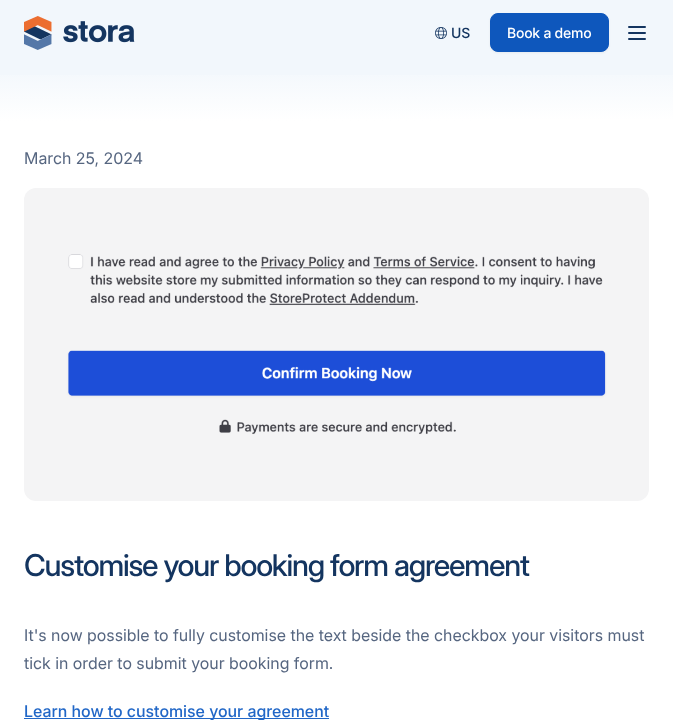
<svg xmlns="http://www.w3.org/2000/svg" width="673" height="720" viewBox="0 0 673 720">
  <style>
    .t1 { font: 500 14px 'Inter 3'; fill: #143560; }
    .t2 { font: 500 14px 'Inter 3'; letter-spacing: -0.25px; fill: #fff; }
    .t3 { font: 16px Inter; fill: #566680; }
    .t4 { font: 500 30px Inter; letter-spacing: -1.2px; fill: #143560; }
    .t5 { font: 500 16px 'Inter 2'; fill: #2167c7; }
  </style>
  <defs>
    <linearGradient id="g1" gradientUnits="userSpaceOnUse" x1="336" y1="64" x2="337" y2="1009"><stop offset="0" stop-color="#f2f7fc"/><stop offset="0.06" stop-color="#fff"/><stop offset="1" stop-color="#fff"/></linearGradient>
  </defs>
  <rect width="100%" height="100%" fill="#f2f7fc"/>
  <image x="24" y="16" width="111" height="34" href="images/1.png"/>
  <image x="435" y="27" width="12" height="12" href="images/2.png"/>
  <text x="451" y="38" class="t1">US</text>
  <rect x="490" y="14" width="119" height="39" rx="8" fill="#0000000d" filter="blur(1px)"/>
  <rect x="490.5" y="13.5" width="118" height="38" rx="7.5" fill="#0e57bc" stroke="#0e57bc"/>
  <text x="507" y="38" class="t2">Book a demo</text>
  <path d="M629 27H645M629 33H645M629 39H645" fill="none" stroke="#143560" stroke-width="2" stroke-linecap="round" stroke-linejoin="round"/>
  <rect x="0" y="75" width="673" height="645" fill="url(#g1)"/>
  <text x="24" y="164" class="t3">March 25, 2024</text>
  <image x="24" y="188" width="625" height="313" href="images/3.png"/>
  <text x="24" y="576" class="t4">Customise your booking form agreement</text>
  <text x="24" y="641" class="t3">It's now possible to fully customise the text beside the checkbox your visitors must</text>
  <text x="24" y="669" class="t3">tick in order to submit your booking form.</text>
  <rect x="24" y="718" width="305" height="1" fill="#2167c7"/>
  <text x="24" y="717" class="t5">Learn how to customise your agreement</text>
</svg>
